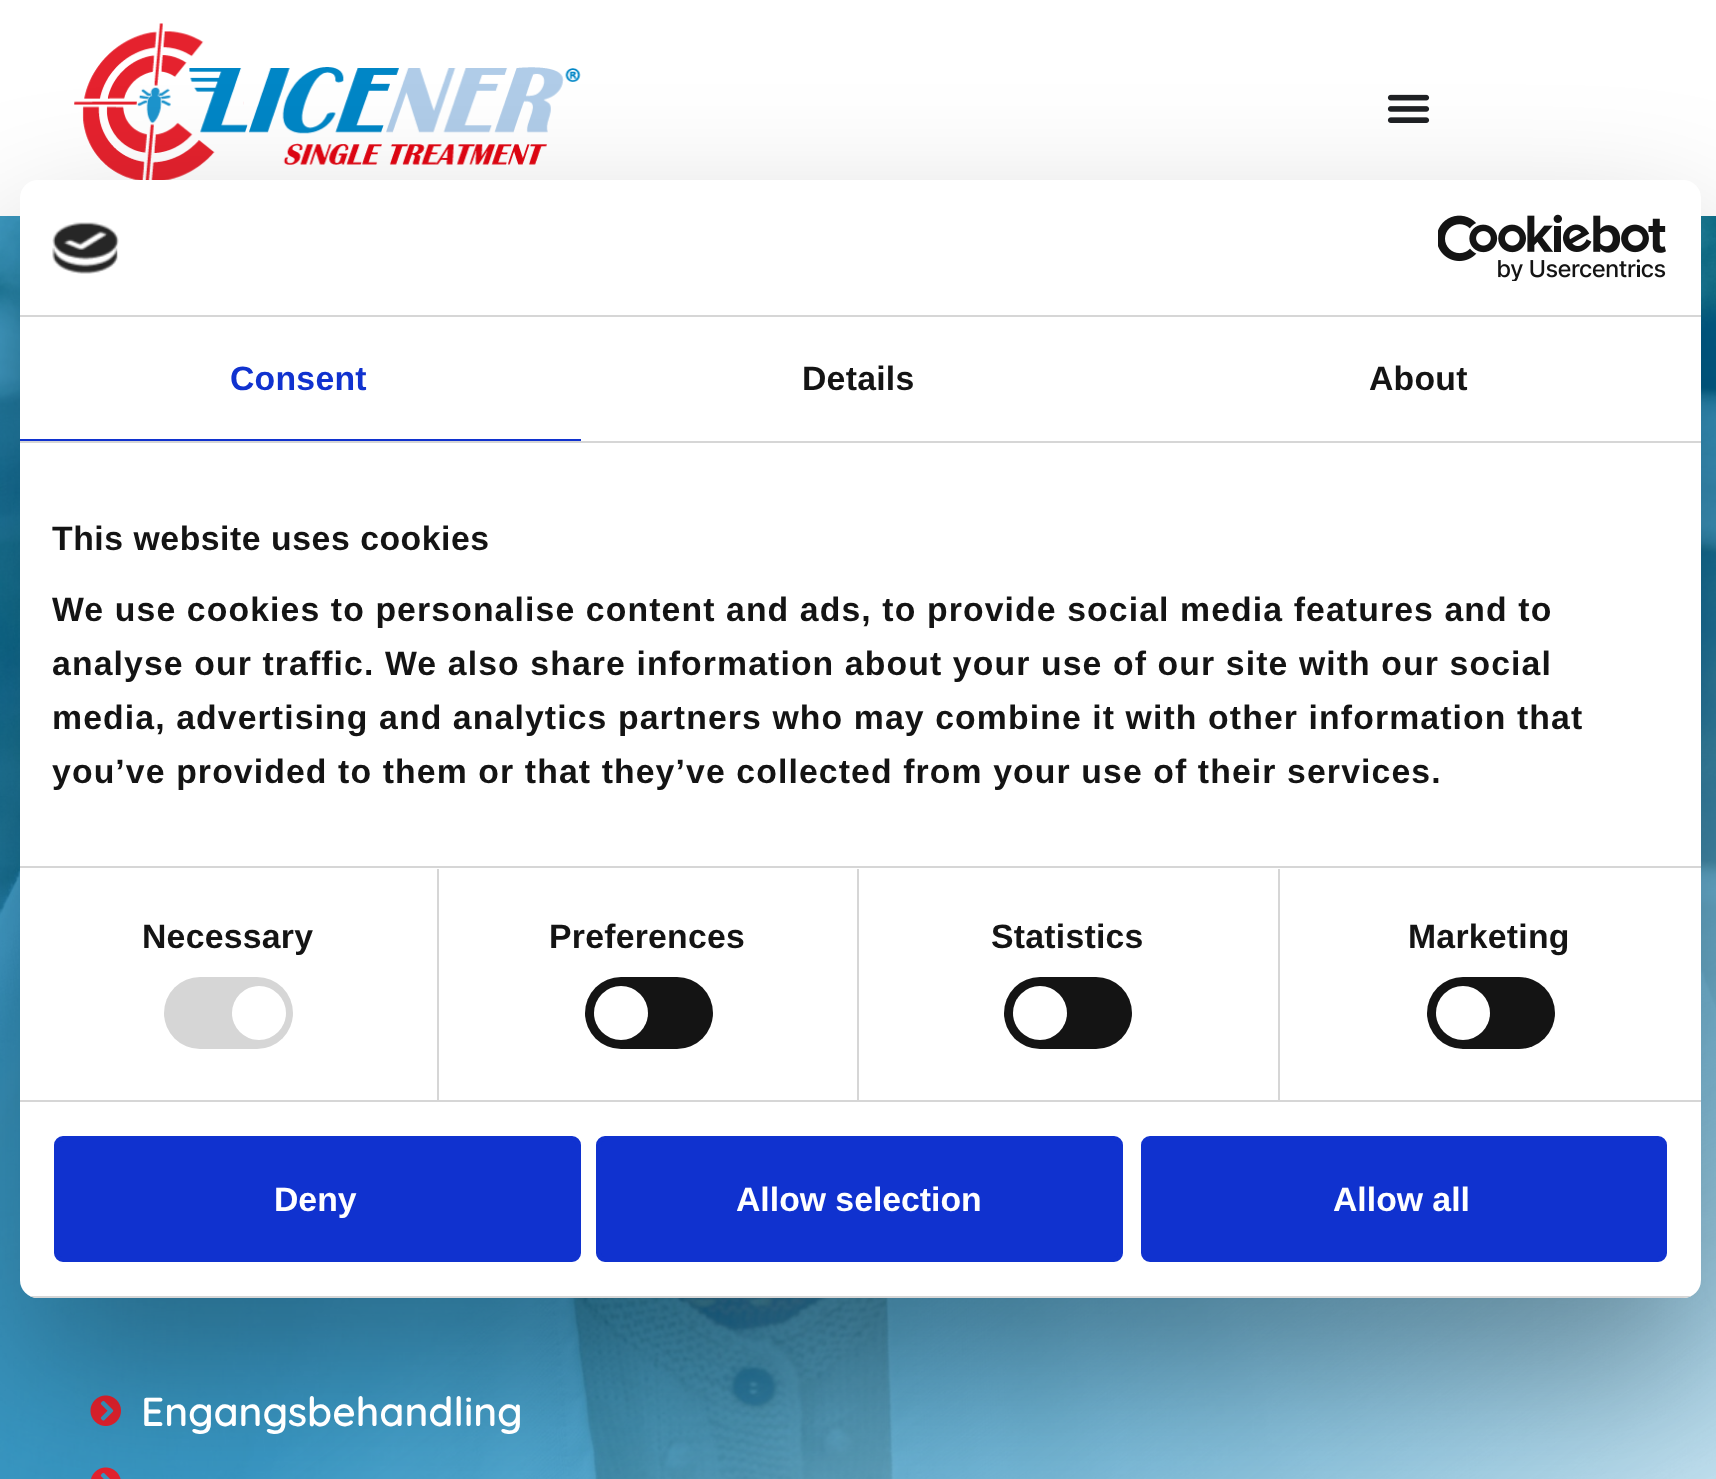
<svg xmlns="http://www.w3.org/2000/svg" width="1716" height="1479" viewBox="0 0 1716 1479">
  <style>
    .t1 { font: bold 33.75px Liberation Sans; letter-spacing: 0.25px; fill: #1032cf; }
    .t2 { font: bold 33.75px Liberation Sans; letter-spacing: 0.25px; fill: #141414; }
    .t3 { font: bold 33.75px Liberation Sans; letter-spacing: 0.55px; fill: #141414; }
    .t4 { font: bold 33.75px Liberation Sans; letter-spacing: 1.12px; fill: #141414; }
    .t5 { font: bold 33.75px Liberation Sans; fill: #fff; }
    .t6 { font: 600 40.5px Quicksand; fill: #fff; }
  </style>
  <defs>
    <clipPath id="clip1"><rect x="20" y="180" width="1681" height="1118" rx="18"/></clipPath>
  </defs>
  <rect width="100%" height="100%" fill="#fff"/>
  <image x="74" y="23" width="507" height="157" href="images/1.png"/>
  <image x="1387" y="94" width="43" height="29" href="images/2.png"/>
  <image x="0" y="216" width="1716" height="1263" href="images/5.png"/>
  <image x="90" y="1395" width="31" height="31" href="images/6.png"/>
  <image x="91" y="1467" width="30" height="12" href="images/7.png"/>
  <rect x="20" y="252" width="1681" height="1118" rx="18" fill="#0000004d" filter="blur(76.5px)"/>
  <rect x="20" y="180" width="1681" height="1118" rx="18" fill="#fff"/>
  <rect x="20" y="315" width="1681" height="2" fill="#d6d6d6"/>
  <image x="52" y="222" width="67" height="52" href="images/3.png"/>
  <image x="1438" y="214" width="228" height="67" href="images/4.png"/>
  <rect x="20" y="441" width="1681" height="2" fill="#d6d6d6"/>
  <rect x="20" y="439" width="561" height="2" fill="#1032cf"/>
  <text x="230" y="390" class="t1">Consent</text>
  <text x="802" y="390" class="t2">Details</text>
  <text x="1369" y="390" class="t2">About</text>
  <rect x="20" y="866" width="1681" height="2" fill="#d6d6d6"/>
  <text x="52" y="550" class="t3">This website uses cookies</text>
  <text x="52" y="621" class="t4">We use cookies to personalise content and ads, to provide social media features and to</text>
  <text x="52" y="675" class="t4">analyse our traffic. We also share information about your use of our site with our social</text>
  <text x="52" y="729" class="t4">media, advertising and analytics partners who may combine it with other information that</text>
  <text x="52" y="783" class="t4">you’ve provided to them or that they’ve collected from your use of their services.</text>
  <rect x="20" y="1100" width="1681" height="2" fill="#d6d6d6"/>
  <rect x="437" y="869" width="2" height="231" fill="#d6d6d6"/>
  <text x="142" y="948" class="t2">Necessary</text>
  <rect x="164" y="977" width="129" height="72" rx="36" fill="#d6d6d6"/>
  <circle cx="259" cy="1013" r="27" fill="#fff"/>
  <rect x="857" y="869" width="2" height="231" fill="#d6d6d6"/>
  <text x="549" y="948" class="t2">Preferences</text>
  <rect x="585" y="977" width="128" height="72" rx="36" fill="#141414"/>
  <circle cx="621" cy="1013" r="27" fill="#fff"/>
  <rect x="1278" y="869" width="2" height="231" fill="#d6d6d6"/>
  <text x="991" y="948" class="t2">Statistics</text>
  <rect x="1004" y="977" width="128" height="72" rx="36" fill="#141414"/>
  <circle cx="1040" cy="1013" r="27" fill="#fff"/>
  <text x="1408" y="948" class="t2">Marketing</text>
  <rect x="1427" y="977" width="128" height="72" rx="36" fill="#141414"/>
  <circle cx="1463" cy="1013" r="27" fill="#fff"/>
  <g clip-path="url(#clip1)">
    <rect x="30" y="1296" width="1661" height="2" fill="#d6d6d6"/>
  </g>
  <rect x="56.5" y="1138.5" width="522" height="121" rx="6.5" fill="#1032cf" stroke="#1032cf" stroke-width="5"/>
  <text x="274" y="1211" class="t5">Deny</text>
  <rect x="598.5" y="1138.5" width="522" height="121" rx="6.5" fill="#1032cf" stroke="#1032cf" stroke-width="5"/>
  <text x="736" y="1211" class="t5">Allow selection</text>
  <rect x="1143.5" y="1138.5" width="521" height="121" rx="6.5" fill="#1032cf" stroke="#1032cf" stroke-width="5"/>
  <text x="1333" y="1211" class="t5">Allow all</text>
  <text x="141" y="1426" class="t6">Engangsbehandling</text>
</svg>
